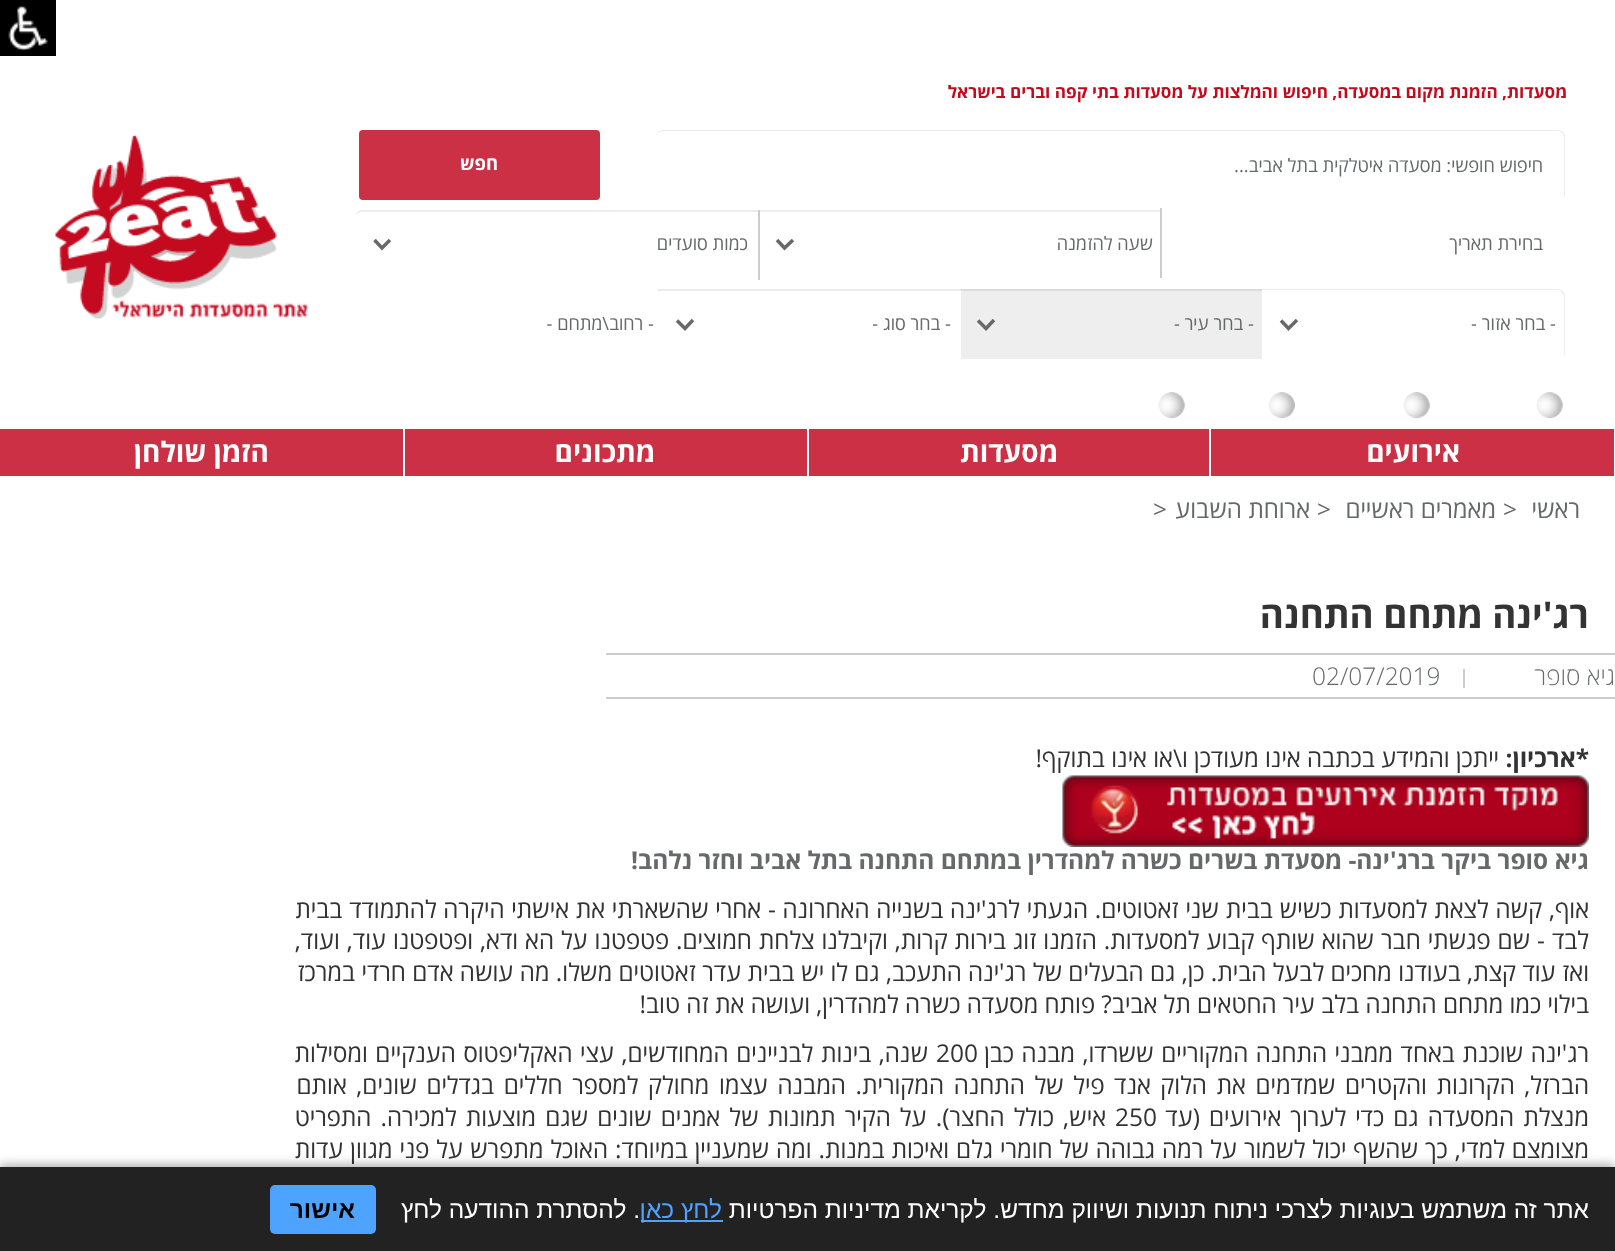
<svg xmlns="http://www.w3.org/2000/svg" width="1615" height="1251" viewBox="0 0 1615 1251">
  <style>
    .t1 { font: bold 17.15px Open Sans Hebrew; direction: rtl; fill: #c50a20; }
    .t2 { font: 18.4px Open Sans Hebrew; direction: rtl; fill: #66686a; }
    .t3 { font: bold 18.4px Open Sans Hebrew; direction: rtl; fill: #fff; }
    .t4 { font: bold 28px Open Sans Hebrew; direction: rtl; fill: #fff; }
    .t5 { font: 24.5px Open Sans Hebrew; direction: rtl; fill: #66686a; }
    .t6 { font: 24.5px Open Sans Hebrew; fill: #66686a; }
    .t7 { font: bold 36.75px Open Sans Hebrew; direction: rtl; fill: #333; }
    .t8 { font: 300 24.5px Open Sans Hebrew; direction: rtl; fill: #66686a; }
    .t9 { font: 300 24.5px Open Sans Hebrew; fill: #66686a; }
    .t10 { font: bold 24.5px Open Sans Hebrew; direction: rtl; fill: #333; }
    .t11 { font: 24.5px Open Sans Hebrew; direction: rtl; fill: #333; }
    .t12 { font: bold 24.5px Open Sans Hebrew; direction: rtl; fill: #66686a; }
    .t13 { font: 24.5px Open Sans Hebrew; fill: #333; }
    .t14 { font: 24.5px Liberation Sans; direction: rtl; fill: #fff; }
    .t15 { font: 24.5px Liberation Sans; direction: rtl; fill: #4ea3ff; }
    .t16 { font: bold 24.5px Liberation Sans; direction: rtl; fill: #000; }
  </style>
  <rect width="100%" height="100%" fill="#fff"/>
  <rect x="0" y="0" width="56" height="56" fill="#000"/>
  <image x="8" y="5" width="40" height="46" href="images/1.png"/>
  <text x="1567" y="98" class="t1">מסעדות, הזמנת מקום במסעדה, חיפוש והמלצות על מסעדות בתי קפה וברים בישראל</text>
  <path d="M663 131H1558C1561 131 1564 134 1564 138V194C1564 196 1564 197 1563 198C1564 197 1565 195 1565 193V137C1565 133 1562 130 1558 130H663C659 130 656 133 656 137V138C656 134 659 131 663 131Z" fill="#ececec"/>
  <text x="1543" y="172" class="t2">חיפוש חופשי: מסעדה איטלקית בתל אביב...</text>
  <rect x="359" y="130" width="241" height="70" rx="4" fill="#cc3045"/>
  <text x="498" y="170" class="t3">חפש</text>
  <rect x="758" y="210" width="404" height="2" fill="#ececec"/>
  <rect x="1160" y="208" width="2" height="70" fill="#ccc"/>
  <text x="1543" y="250" class="t2">בחירת תאריך</text>
  <path d="M793 240L784.5 248L777 240" fill="none" stroke="#696969" stroke-width="3.5"/>
  <text x="1153" y="250" class="t2">שעה להזמנה</text>
  <rect x="758" y="210" width="2" height="70" fill="#ccc"/>
  <path d="M390 240L382 248L374.5 240" fill="none" stroke="#696969" stroke-width="3.5"/>
  <path d="M362 212H758V210H362C357 210 355 215 355 219C355 215 358 212 362 212Z" fill="#ececec"/>
  <text x="748" y="250" class="t2">כמות סועדים</text>
  <path d="M1297 320L1288.5 328.5L1281 320.5" fill="none" stroke="#696969" stroke-width="3.5"/>
  <path d="M1262 290H1558C1561 290 1564 294 1564 298V354L1563 357C1564 355 1565 354 1565 352V296C1565 292 1562 289 1558 289H1262Z" fill="#ececec"/>
  <text x="1556" y="330" class="t2">- בחר אזור -</text>
  <rect x="961" y="291" width="301" height="68" fill="#eee"/>
  <path d="M994 320L986 328.5L978 320.5" fill="none" stroke="#696969" stroke-width="3.5"/>
  <rect x="959" y="289" width="303" height="2" fill="#dcdcdc"/>
  <text x="1254" y="330" class="t2">- בחר עיר -</text>
  <path d="M693 320L685 328.5L677 320.5" fill="none" stroke="#696969" stroke-width="3.5"/>
  <rect x="658" y="289" width="303" height="2" fill="#ececec"/>
  <text x="951" y="330" class="t2">- בחר סוג -</text>
  <text x="654" y="330" class="t2">- רחוב\מתחם -</text>
  <image x="1536" y="392" width="27" height="27" href="images/2.png"/>
  <image x="1403" y="392" width="27" height="27" href="images/2.png"/>
  <image x="1269" y="392" width="26" height="27" href="images/3.png"/>
  <image x="1158" y="392" width="27" height="27" href="images/2.png"/>
  <image x="55" y="135" width="253" height="184" href="images/4.png"/>
  <rect x="1211" y="429" width="403" height="47" fill="#cc3045"/>
  <text x="1460" y="462" class="t4">אירועים</text>
  <rect x="809" y="429" width="400" height="47" fill="#cc3045"/>
  <text x="1058" y="462" class="t4">מסעדות</text>
  <rect x="405" y="429" width="402" height="47" fill="#cc3045"/>
  <text x="655" y="462" class="t4">מתכונים</text>
  <rect x="0" y="429" width="403" height="47" fill="#cc3045"/>
  <text x="269" y="462" class="t4">הזמן שולחן</text>
  <text x="1580" y="518" class="t5">ראשי</text>
  <text x="1503" y="518" class="t6">&gt;</text>
  <text x="1496" y="518" class="t5">מאמרים ראשיים</text>
  <text x="1317" y="518" class="t6">&gt;</text>
  <text x="1310" y="518" class="t5">ארוחת השבוע</text>
  <text x="1153" y="518" class="t6">&gt;</text>
  <text x="1589" y="628" class="t7">רג'ינה מתחם התחנה</text>
  <rect x="606" y="653" width="1009" height="2" fill="#ccc"/>
  <rect x="606" y="697" width="1009" height="2" fill="#ccc"/>
  <text x="1615" y="685" class="t8">גיא סופר</text>
  <rect x="1463" y="669" width="2" height="19" fill="#ccc"/>
  <text x="1312" y="685" class="t9">02/07/2019</text>
  <text x="1589" y="767" class="t10">*ארכיון:</text>
  <text x="1499" y="767" class="t11">ייתכן והמידע בכתבה אינו מעודכן ו\או אינו בתוקף!</text>
  <image x="1062" y="775" width="527" height="72" href="images/5.png"/>
  <text x="1589" y="869" class="t12">גיא סופר ביקר ברג'ינה- מסעדת בשרים כשרה למהדרין במתחם התחנה בתל אביב וחזר נלהב!</text>
  <text x="1589" y="918" word-spacing="0.4" class="t11">אוף, קשה לצאת למסעדות כשיש בבית שני זאטוטים. הגעתי לרג'ינה בשנייה האחרונה - אחרי שהשארתי את אישתי היקרה להתמודד בבית</text>
  <text x="1589" y="949" word-spacing="0.6" class="t11">לבד - שם פגשתי חבר שהוא שותף קבוע למסעדות. הזמנו זוג בירות קרות, וקיבלנו צלחת חמוצים. פטפטנו על הא ודא, ופטפטנו עוד, ועוד,</text>
  <text x="1589" y="981" class="t11">ואז עוד קצת, בעודנו מחכים לבעל הבית. כן, גם הבעלים של רג'ינה התעכב, גם לו יש בבית עדר זאטוטים משלו. מה עושה אדם חרדי במרכז</text>
  <text x="1589" y="1013" class="t11">בילוי כמו מתחם התחנה בלב עיר החטאים תל אביב? פותח מסעדה כשרה למהדרין, ועושה את זה טוב!</text>
  <text x="1589" y="1062" word-spacing="1.25" class="t11">רג'ינה שוכנת באחד ממבני התחנה המקוריים ששרדו, מבנה כבן</text>
  <text x="936" y="1062" class="t13">200</text>
  <text x="928" y="1062" word-spacing="1.25" class="t11">שנה, בינות לבניינים המחודשים, עצי האקליפטוס הענקיים ומסילות</text>
  <text x="1589" y="1094" word-spacing="3.25" class="t11">הברזל, הקרונות והקטרים שמדמים את הלוק אנד פיל של התחנה המקורית. המבנה עצמו מחולק למספר חללים בגדלים שונים, אותם</text>
  <text x="1589" y="1126" word-spacing="2.75" class="t11">מנצלת המסעדה גם כדי לערוך אירועים (עד</text>
  <text x="1115" y="1126" class="t13">250</text>
  <text x="1106" y="1126" word-spacing="2.75" class="t11">איש, כולל החצר). על הקיר תמונות של אמנים שונים שגם מוצעות למכירה. התפריט</text>
  <text x="1589" y="1158" word-spacing="0.6" class="t11">מצומצם למדי, כך שהשף יכול לשמור על רמה גבוהה של חומרי גלם ואיכות במנות. ומה שמעניין במיוחד: האוכל מתפרש על פני מגוון עדות</text>
  <rect x="0" y="1164" width="1615" height="84" fill="#0000004d" filter="blur(5px)"/>
  <rect x="0" y="1167" width="1615" height="84" fill="#222"/>
  <text x="1589" y="1218" class="t14">אתר זה משתמש בעוגיות לצרכי ניתוח תנועות ושיווק מחדש. לקריאת מדיניות הפרטיות</text>
  <rect x="641" y="1220" width="82" height="2" fill="#4ea3ff"/>
  <text x="722" y="1218" class="t15">לחץ כאן</text>
  <text x="640" y="1218" class="t14">. להסתרת ההודעה לחץ</text>
  <rect x="270" y="1185" width="106" height="49" rx="5" fill="#4ea3ff"/>
  <text x="355" y="1218" class="t16">אישור</text>
</svg>
